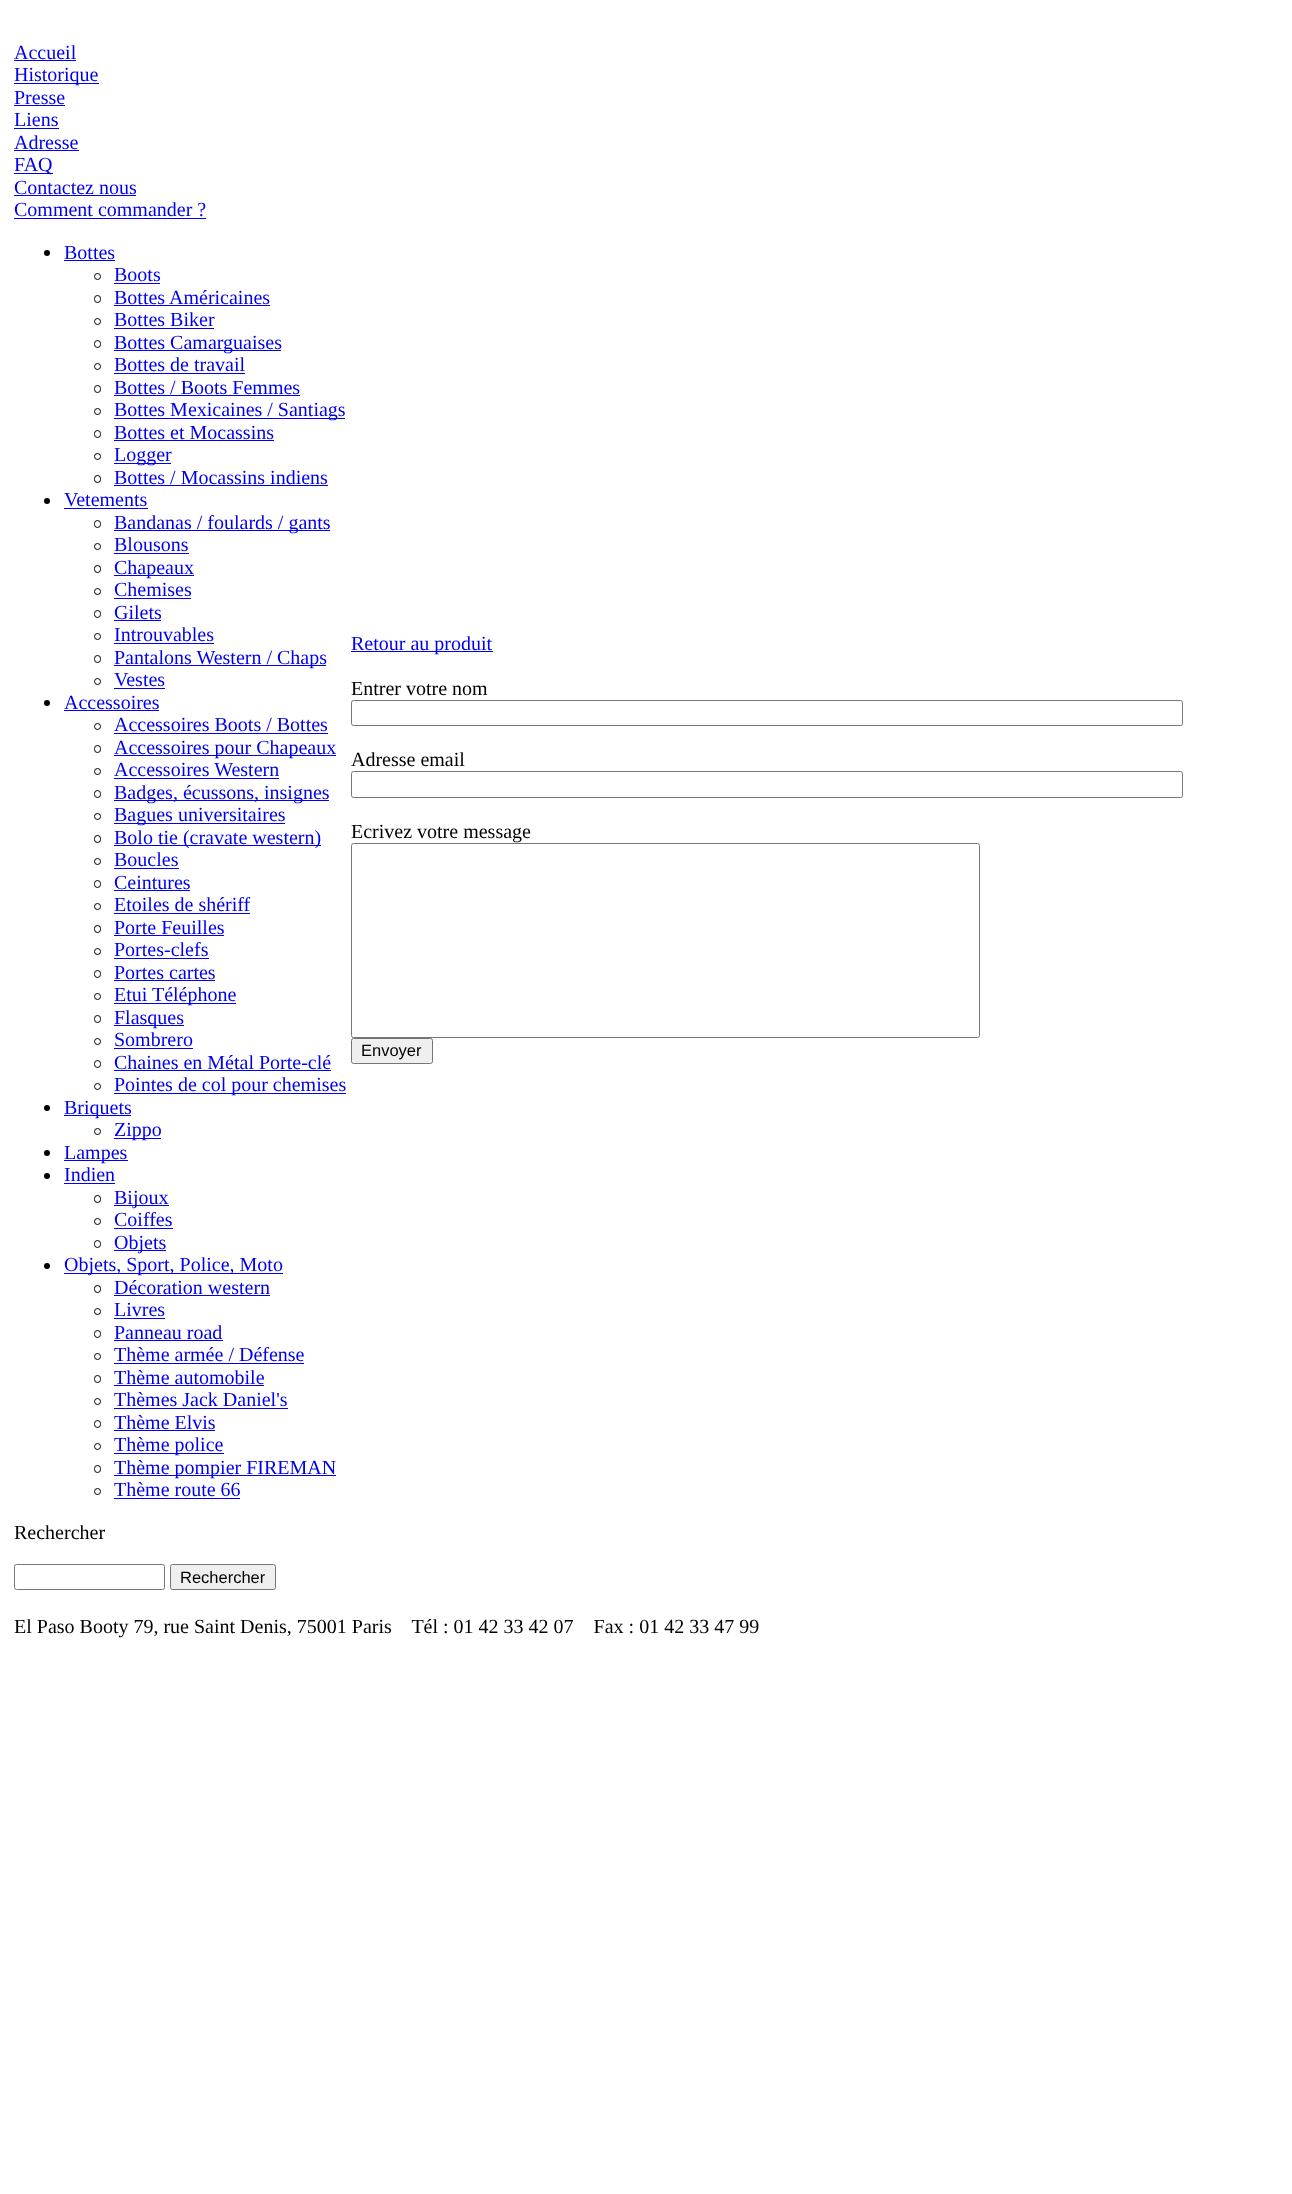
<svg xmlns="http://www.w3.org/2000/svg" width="1292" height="2194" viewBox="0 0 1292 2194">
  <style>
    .t1 { font: 20px Liberation Serif; fill: #00e; }
    .t2 { font: 20px Liberation Serif; fill: #000; }
    .t3 { font: 16.5px Liberation Sans; fill: #000; }
  </style>
  <rect width="100%" height="100%" fill="#fff"/>
  <text x="14" y="59" class="t1">Accueil</text>
  <rect x="14" y="60" width="62" height="1" fill="#00e"/>
  <rect x="14" y="83" width="85" height="1" fill="#00e"/>
  <text x="14" y="81" class="t1">Historique</text>
  <text x="14" y="104" class="t1">Presse</text>
  <rect x="14" y="105" width="51" height="1" fill="#00e"/>
  <text x="14" y="126" class="t1">Liens</text>
  <rect x="14" y="128" width="45" height="1" fill="#00e"/>
  <text x="14" y="149" class="t1">Adresse</text>
  <rect x="14" y="150" width="65" height="1" fill="#00e"/>
  <rect x="14" y="173" width="39" height="1" fill="#00e"/>
  <text x="14" y="171" class="t1">FAQ</text>
  <text x="14" y="194" class="t1">Contactez nous</text>
  <rect x="14" y="195" width="122" height="1" fill="#00e"/>
  <text x="14" y="216" class="t1">Comment commander ?</text>
  <rect x="14" y="218" width="192" height="1" fill="#00e"/>
  <circle cx="47" cy="253" r="3" fill="#000"/>
  <text x="64" y="259" class="t1">Bottes</text>
  <rect x="64" y="260" width="51" height="1" fill="#00e"/>
  <circle cx="97.5" cy="276.5" r="3" fill="none" stroke="#000"/>
  <text x="114" y="281" class="t1">Boots</text>
  <rect x="114" y="283" width="46" height="1" fill="#00e"/>
  <rect x="94.5" y="295.5" width="6" height="7" rx="3" fill="none" stroke="#000"/>
  <text x="114" y="304" class="t1">Bottes Américaines</text>
  <rect x="114" y="305" width="156" height="1" fill="#00e"/>
  <circle cx="97.5" cy="321.5" r="3" fill="none" stroke="#000"/>
  <text x="114" y="326" class="t1">Bottes Biker</text>
  <rect x="114" y="328" width="100" height="1" fill="#00e"/>
  <rect x="94.5" y="340.5" width="6" height="7" rx="3" fill="none" stroke="#000"/>
  <rect x="114" y="350" width="167" height="1" fill="#00e"/>
  <text x="114" y="349" class="t1">Bottes Camarguaises</text>
  <circle cx="97.5" cy="366.5" r="3" fill="none" stroke="#000"/>
  <text x="114" y="371" class="t1">Bottes de travail</text>
  <rect x="114" y="373" width="131" height="1" fill="#00e"/>
  <rect x="94.5" y="385.5" width="6" height="7" rx="3" fill="none" stroke="#000"/>
  <text x="114" y="394" class="t1">Bottes / Boots Femmes</text>
  <rect x="114" y="395" width="186" height="1" fill="#00e"/>
  <circle cx="97.5" cy="411.5" r="3" fill="none" stroke="#000"/>
  <rect x="114" y="418" width="231" height="1" fill="#00e"/>
  <text x="114" y="416" class="t1">Bottes Mexicaines / Santiags</text>
  <rect x="94.5" y="430.5" width="6" height="7" rx="3" fill="none" stroke="#000"/>
  <text x="114" y="439" class="t1">Bottes et Mocassins</text>
  <rect x="114" y="440" width="160" height="1" fill="#00e"/>
  <circle cx="97.5" cy="456.5" r="3" fill="none" stroke="#000"/>
  <rect x="114" y="463" width="57" height="1" fill="#00e"/>
  <text x="114" y="461" class="t1">Logger</text>
  <rect x="94.5" y="475.5" width="6" height="7" rx="3" fill="none" stroke="#000"/>
  <text x="114" y="484" class="t1">Bottes / Mocassins indiens</text>
  <rect x="114" y="485" width="214" height="1" fill="#00e"/>
  <circle cx="47" cy="501" r="3" fill="#000"/>
  <text x="64" y="506" class="t1">Vetements</text>
  <rect x="64" y="508" width="84" height="1" fill="#00e"/>
  <rect x="94.5" y="520.5" width="6" height="7" rx="3" fill="none" stroke="#000"/>
  <rect x="114" y="530" width="216" height="1" fill="#00e"/>
  <text x="114" y="529" class="t1">Bandanas / foulards / gants</text>
  <circle cx="97.5" cy="546.5" r="3" fill="none" stroke="#000"/>
  <text x="114" y="551" class="t1">Blousons</text>
  <rect x="114" y="553" width="75" height="1" fill="#00e"/>
  <rect x="94.5" y="565.5" width="6" height="7" rx="3" fill="none" stroke="#000"/>
  <rect x="114" y="575" width="80" height="1" fill="#00e"/>
  <text x="114" y="574" class="t1">Chapeaux</text>
  <circle cx="97.5" cy="591.5" r="3" fill="none" stroke="#000"/>
  <text x="114" y="596" class="t1">Chemises</text>
  <rect x="114" y="598" width="77" height="1" fill="#00e"/>
  <rect x="94.5" y="610.5" width="6" height="7" rx="3" fill="none" stroke="#000"/>
  <text x="114" y="619" class="t1">Gilets</text>
  <rect x="114" y="620" width="47" height="1" fill="#00e"/>
  <circle cx="97.5" cy="636.5" r="3" fill="none" stroke="#000"/>
  <text x="114" y="641" class="t1">Introuvables</text>
  <rect x="114" y="643" width="100" height="1" fill="#00e"/>
  <rect x="94.5" y="655.5" width="6" height="7" rx="3" fill="none" stroke="#000"/>
  <rect x="114" y="665" width="212" height="1" fill="#00e"/>
  <text x="114" y="664" class="t1">Pantalons Western / Chaps</text>
  <circle cx="97.5" cy="681.5" r="3" fill="none" stroke="#000"/>
  <text x="114" y="686" class="t1">Vestes</text>
  <rect x="114" y="688" width="51" height="1" fill="#00e"/>
  <circle cx="47" cy="703" r="3" fill="#000"/>
  <text x="64" y="709" class="t1">Accessoires</text>
  <rect x="64" y="710" width="95" height="1" fill="#00e"/>
  <circle cx="97.5" cy="726.5" r="3" fill="none" stroke="#000"/>
  <text x="114" y="731" class="t1">Accessoires Boots / Bottes</text>
  <rect x="114" y="733" width="214" height="1" fill="#00e"/>
  <rect x="94.5" y="745.5" width="6" height="7" rx="3" fill="none" stroke="#000"/>
  <rect x="114" y="755" width="222" height="1" fill="#00e"/>
  <text x="114" y="754" class="t1">Accessoires pour Chapeaux</text>
  <circle cx="97.5" cy="771.5" r="3" fill="none" stroke="#000"/>
  <text x="114" y="776" class="t1">Accessoires Western</text>
  <rect x="114" y="778" width="165" height="1" fill="#00e"/>
  <rect x="94.5" y="790.5" width="6" height="7" rx="3" fill="none" stroke="#000"/>
  <rect x="114" y="800" width="215" height="1" fill="#00e"/>
  <text x="114" y="799" class="t1">Badges, écussons, insignes</text>
  <circle cx="97.5" cy="816.5" r="3" fill="none" stroke="#000"/>
  <rect x="114" y="823" width="171" height="1" fill="#00e"/>
  <text x="114" y="821" class="t1">Bagues universitaires</text>
  <rect x="94.5" y="835.5" width="6" height="7" rx="3" fill="none" stroke="#000"/>
  <rect x="114" y="845" width="207" height="1" fill="#00e"/>
  <text x="114" y="844" class="t1">Bolo tie (cravate western)</text>
  <circle cx="97.5" cy="861.5" r="3" fill="none" stroke="#000"/>
  <text x="114" y="866" class="t1">Boucles</text>
  <rect x="114" y="868" width="65" height="1" fill="#00e"/>
  <rect x="94.5" y="880.5" width="6" height="7" rx="3" fill="none" stroke="#000"/>
  <text x="114" y="889" class="t1">Ceintures</text>
  <rect x="114" y="890" width="76" height="1" fill="#00e"/>
  <circle cx="97.5" cy="906.5" r="3" fill="none" stroke="#000"/>
  <text x="114" y="911" class="t1">Etoiles de shériff</text>
  <rect x="114" y="913" width="136" height="1" fill="#00e"/>
  <rect x="94.5" y="925.5" width="6" height="7" rx="3" fill="none" stroke="#000"/>
  <text x="114" y="934" class="t1">Porte Feuilles</text>
  <rect x="114" y="935" width="110" height="1" fill="#00e"/>
  <circle cx="97.5" cy="951.5" r="3" fill="none" stroke="#000"/>
  <text x="114" y="956" class="t1">Portes-clefs</text>
  <rect x="114" y="958" width="95" height="1" fill="#00e"/>
  <rect x="94.5" y="970.5" width="6" height="7" rx="3" fill="none" stroke="#000"/>
  <text x="114" y="979" class="t1">Portes cartes</text>
  <rect x="114" y="980" width="101" height="1" fill="#00e"/>
  <circle cx="97.5" cy="996.5" r="3" fill="none" stroke="#000"/>
  <rect x="114" y="1003" width="122" height="1" fill="#00e"/>
  <text x="114" y="1001" class="t1">Etui Téléphone</text>
  <rect x="94.5" y="1015.5" width="6" height="7" rx="3" fill="none" stroke="#000"/>
  <rect x="114" y="1025" width="70" height="1" fill="#00e"/>
  <text x="114" y="1024" class="t1">Flasques</text>
  <circle cx="97.5" cy="1041.5" r="3" fill="none" stroke="#000"/>
  <text x="114" y="1046" class="t1">Sombrero</text>
  <rect x="114" y="1048" width="79" height="1" fill="#00e"/>
  <rect x="94.5" y="1060.5" width="6" height="7" rx="3" fill="none" stroke="#000"/>
  <text x="114" y="1069" class="t1">Chaines en Métal Porte-clé</text>
  <rect x="114" y="1070" width="217" height="1" fill="#00e"/>
  <circle cx="97.5" cy="1086.5" r="3" fill="none" stroke="#000"/>
  <rect x="114" y="1093" width="232" height="1" fill="#00e"/>
  <text x="114" y="1091" class="t1">Pointes de col pour chemises</text>
  <circle cx="47" cy="1108" r="3" fill="#000"/>
  <rect x="64" y="1115" width="67" height="1" fill="#00e"/>
  <text x="64" y="1114" class="t1">Briquets</text>
  <circle cx="97.5" cy="1131.5" r="3" fill="none" stroke="#000"/>
  <rect x="114" y="1138" width="47" height="1" fill="#00e"/>
  <text x="114" y="1136" class="t1">Zippo</text>
  <circle cx="47" cy="1153" r="3" fill="#000"/>
  <rect x="64" y="1160" width="64" height="1" fill="#00e"/>
  <text x="64" y="1159" class="t1">Lampes</text>
  <circle cx="47" cy="1176" r="3" fill="#000"/>
  <text x="64" y="1181" class="t1">Indien</text>
  <rect x="64" y="1183" width="51" height="1" fill="#00e"/>
  <rect x="94.5" y="1195.5" width="6" height="7" rx="3" fill="none" stroke="#000"/>
  <rect x="114" y="1205" width="55" height="1" fill="#00e"/>
  <text x="114" y="1204" class="t1">Bijoux</text>
  <circle cx="97.5" cy="1221.5" r="3" fill="none" stroke="#000"/>
  <text x="114" y="1226" class="t1">Coiffes</text>
  <rect x="114" y="1228" width="59" height="1" fill="#00e"/>
  <rect x="94.5" y="1240.5" width="6" height="7" rx="3" fill="none" stroke="#000"/>
  <rect x="114" y="1250" width="52" height="1" fill="#00e"/>
  <text x="114" y="1249" class="t1">Objets</text>
  <circle cx="47" cy="1266" r="3" fill="#000"/>
  <rect x="64" y="1273" width="219" height="1" fill="#00e"/>
  <text x="64" y="1271" class="t1">Objets, Sport, Police, Moto</text>
  <rect x="94.5" y="1285.5" width="6" height="7" rx="3" fill="none" stroke="#000"/>
  <text x="114" y="1294" class="t1">Décoration western</text>
  <rect x="114" y="1295" width="156" height="1" fill="#00e"/>
  <circle cx="97.5" cy="1311.5" r="3" fill="none" stroke="#000"/>
  <text x="114" y="1316" class="t1">Livres</text>
  <rect x="114" y="1318" width="51" height="1" fill="#00e"/>
  <rect x="94.5" y="1330.5" width="6" height="7" rx="3" fill="none" stroke="#000"/>
  <text x="114" y="1339" class="t1">Panneau road</text>
  <rect x="114" y="1340" width="109" height="1" fill="#00e"/>
  <circle cx="97.5" cy="1356.5" r="3" fill="none" stroke="#000"/>
  <text x="114" y="1361" class="t1">Thème armée / Défense</text>
  <rect x="114" y="1363" width="190" height="1" fill="#00e"/>
  <rect x="94.5" y="1375.5" width="6" height="7" rx="3" fill="none" stroke="#000"/>
  <text x="114" y="1384" class="t1">Thème automobile</text>
  <rect x="114" y="1385" width="150" height="1" fill="#00e"/>
  <circle cx="97.5" cy="1401.5" r="3" fill="none" stroke="#000"/>
  <text x="114" y="1406" class="t1">Thèmes Jack Daniel's</text>
  <rect x="114" y="1408" width="174" height="1" fill="#00e"/>
  <rect x="94.5" y="1420.5" width="6" height="7" rx="3" fill="none" stroke="#000"/>
  <text x="114" y="1429" class="t1">Thème Elvis</text>
  <rect x="114" y="1430" width="101" height="1" fill="#00e"/>
  <circle cx="97.5" cy="1446.5" r="3" fill="none" stroke="#000"/>
  <rect x="114" y="1453" width="110" height="1" fill="#00e"/>
  <text x="114" y="1451" class="t1">Thème police</text>
  <rect x="94.5" y="1465.5" width="6" height="7" rx="3" fill="none" stroke="#000"/>
  <rect x="114" y="1475" width="222" height="1" fill="#00e"/>
  <text x="114" y="1474" class="t1">Thème pompier FIREMAN</text>
  <circle cx="97.5" cy="1491.5" r="3" fill="none" stroke="#000"/>
  <text x="114" y="1496" class="t1">Thème route 66</text>
  <rect x="114" y="1498" width="126" height="1" fill="#00e"/>
  <text x="14" y="1539" class="t2">Rechercher</text>
  <rect x="14.5" y="1564.5" width="150" height="25" rx="2" fill="none" stroke="#767676"/>
  <rect x="170.5" y="1564.5" width="105" height="25" rx="2" fill="#efefef" stroke="#767676"/>
  <text x="180" y="1583" class="t3">Rechercher</text>
  <rect x="351" y="651" width="142" height="1" fill="#00e"/>
  <text x="351" y="650" class="t1">Retour au produit</text>
  <text x="351" y="695" class="t2">Entrer votre nom</text>
  <rect x="351.5" y="700.5" width="831" height="25" rx="2" fill="none" stroke="#767676"/>
  <text x="351" y="766" class="t2">Adresse email</text>
  <rect x="351.5" y="771.5" width="831" height="26" rx="2" fill="none" stroke="#767676"/>
  <text x="351" y="838" class="t2">Ecrivez votre message</text>
  <rect x="351.5" y="843.5" width="628" height="194" rx="2" fill="none" stroke="#767676"/>
  <rect x="351.5" y="1038.5" width="81" height="25" rx="2" fill="#efefef" stroke="#767676"/>
  <text x="361" y="1056" class="t3">Envoyer</text>
  <text x="14" y="1633" class="t2" xml:space="preserve">El Paso Booty 79, rue Saint Denis, 75001 Paris    Tél : 01 42 33 42 07    Fax : 01 42 33 47 99</text>
</svg>
